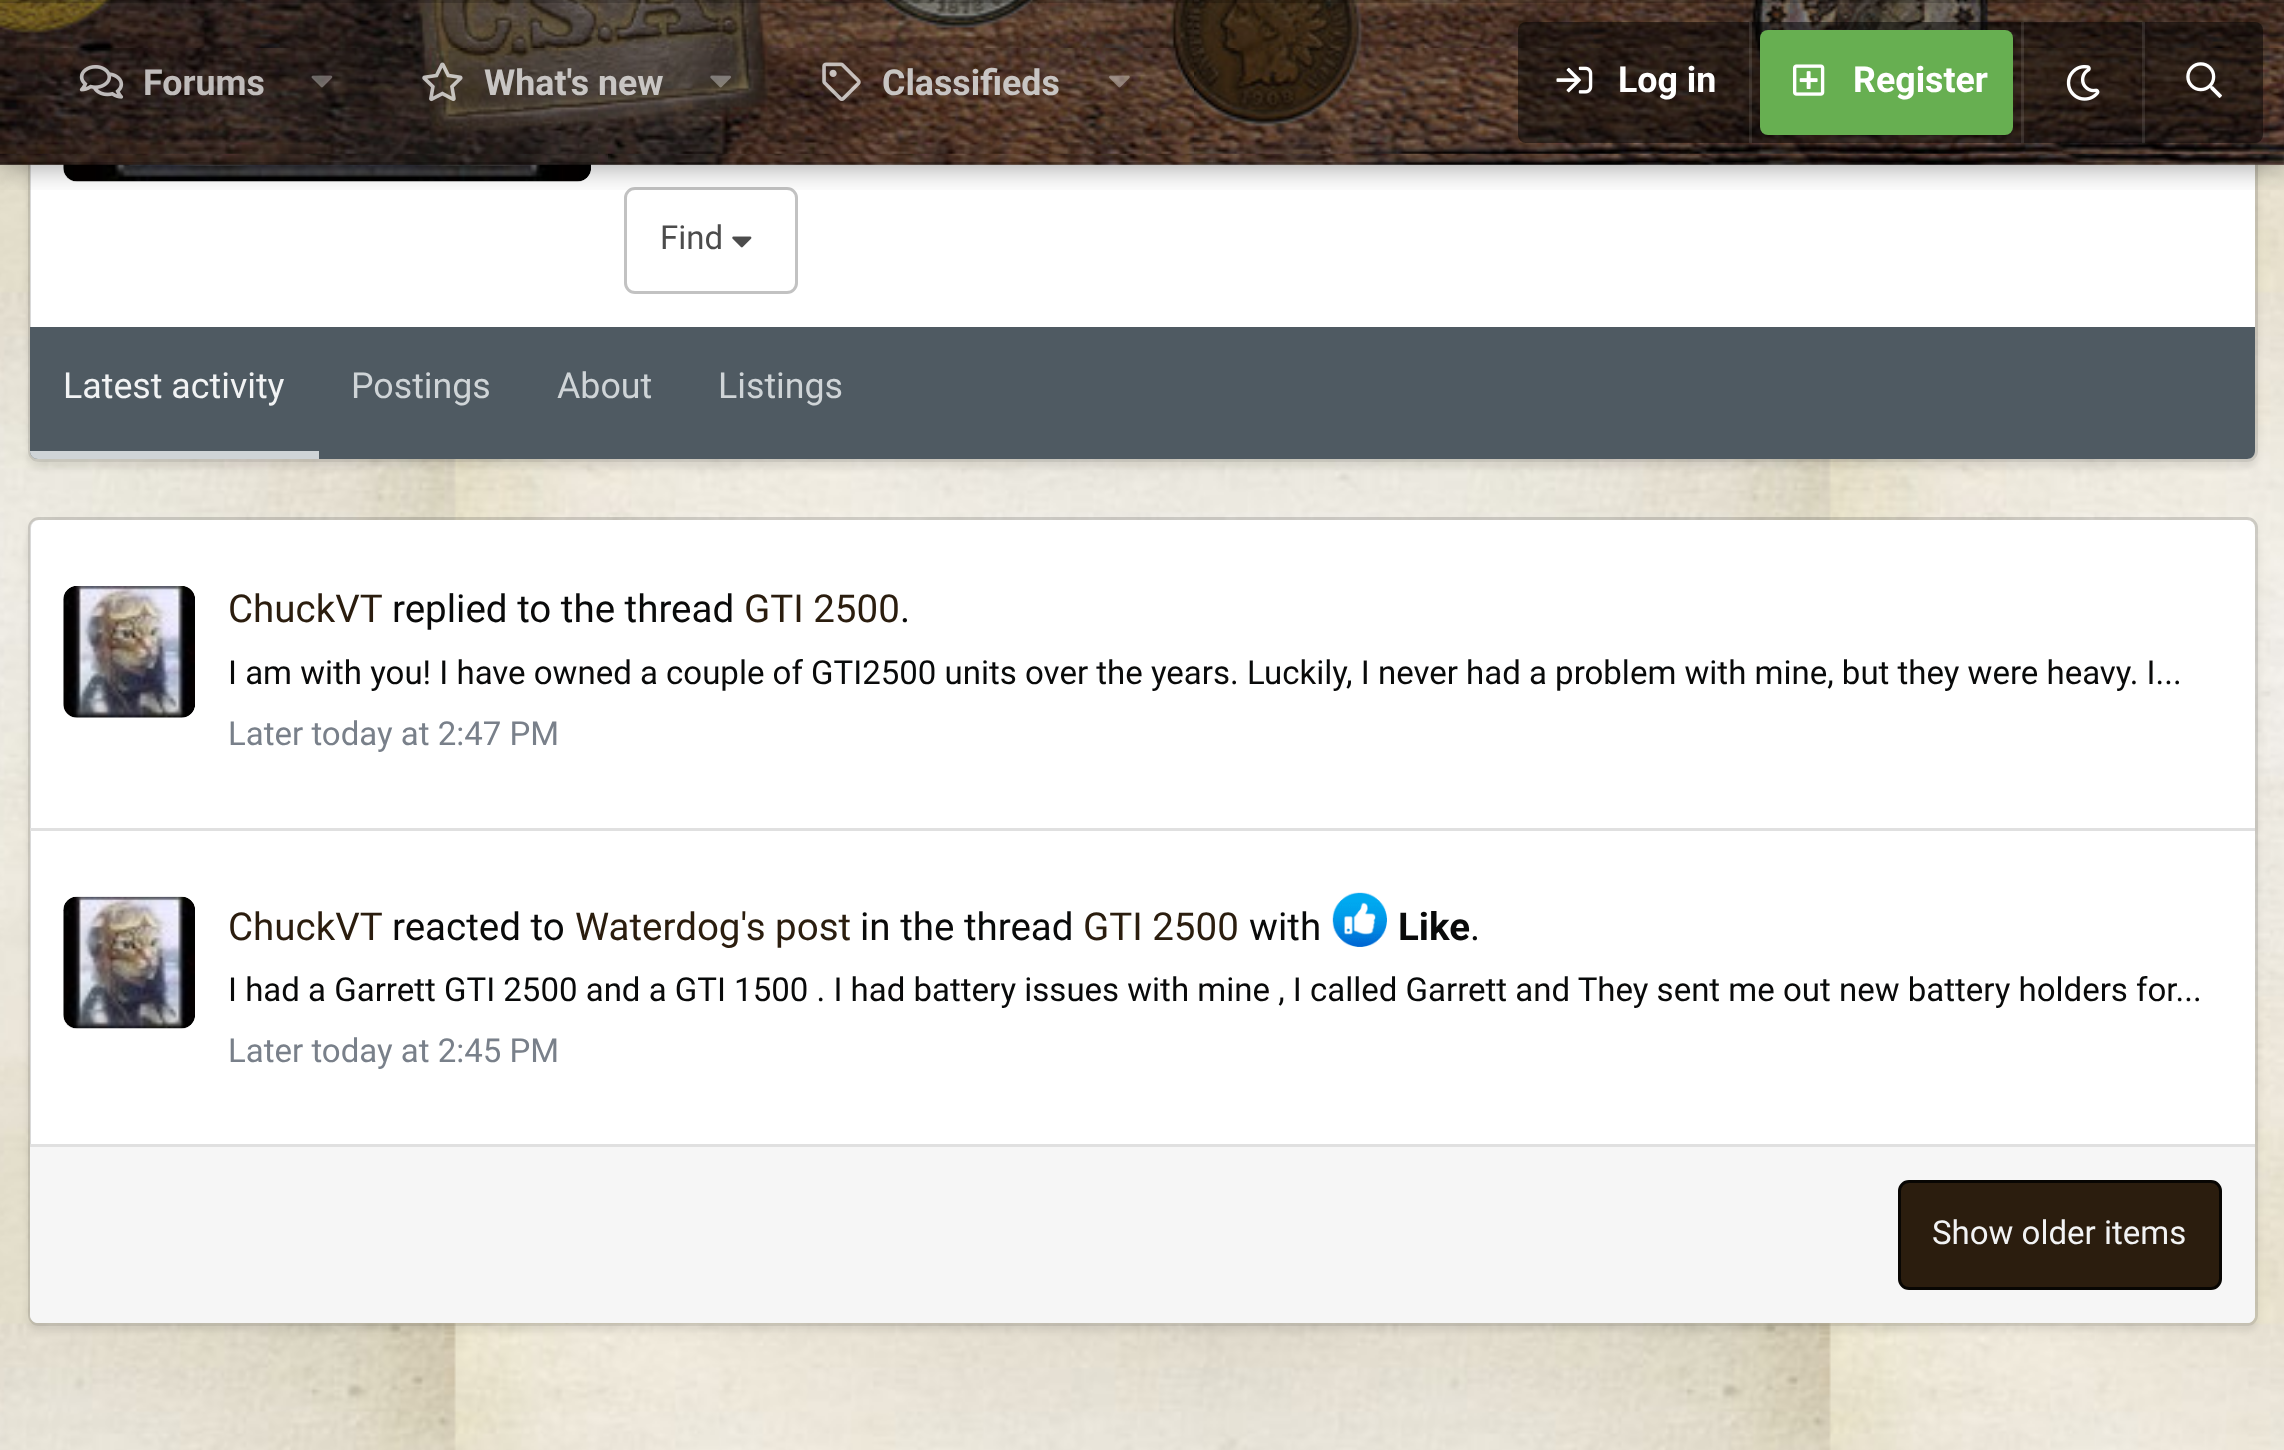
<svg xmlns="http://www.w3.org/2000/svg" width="2284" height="1450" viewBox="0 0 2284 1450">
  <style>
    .t1 { font: bold 35.75px Roboto; fill: #c0bcbb; }
    .t2 { font: bold 35.75px Roboto; fill: #c8c5c3; }
    .t3 { font: bold 35.75px Roboto; fill: #fff; }
    .t4 { font: 33px Roboto; fill: #4c4c4c; }
    .t5 { font: 35.75px Roboto; fill: #f2f3f4; }
    .t6 { font: 35.75px Roboto; fill: #cfd4d7; }
    .t7 { font: 38.5px Roboto; fill: #2b1d0e; }
    .t8 { font: 38.5px Roboto; fill: #090a0a; }
    .t9 { font: 33px Roboto; fill: #090a0a; }
    .t10 { font: 33px Roboto; fill: #79808a; }
    .t11 { font: bold 38.5px Roboto; fill: #090a0a; }
    .t12 { font: 33px Roboto; fill: #f2f3f4; }
  </style>
  <defs>
    <clipPath id="clip1"><path d="M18 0H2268V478H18ZM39-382H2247C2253-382 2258-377 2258-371V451C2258 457 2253 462 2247 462H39C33 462 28 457 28 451V-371C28-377 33-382 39-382Z" clip-rule="evenodd"/></clipPath>
    <clipPath id="clip2"><rect x="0" y="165" width="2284" height="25"/></clipPath>
    <clipPath id="clip3"><path d="M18 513H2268V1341H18ZM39 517H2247C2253 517 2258 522 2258 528V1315C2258 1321 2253 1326 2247 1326H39C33 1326 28 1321 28 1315V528C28 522 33 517 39 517Z" clip-rule="evenodd"/></clipPath>
  </defs>
  <rect width="100%" height="100%" fill="#fff"/>
  <image x="0" y="153" width="2284" height="1297" href="images/1.png"/>
  <g clip-path="url(#clip1)">
    <rect x="28" y="-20" width="2230" height="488" rx="11" fill="#00000014" filter="blur(3px)"/>
  </g>
  <rect x="30" y="-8" width="2225" height="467" rx="8" fill="#fff"/>
  <rect x="29.5" y="-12.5" width="2227" height="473" rx="9.5" fill="none" stroke="#14141429" stroke-width="3"/>
  <image x="63" y="164" width="528" height="18" href="images/14.png"/>
  <rect x="64.5" y="-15.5" width="525" height="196" rx="12.5" fill="none" stroke="#090a0a26" stroke-width="3"/>
  <rect x="625.5" y="188.5" width="171" height="104" rx="9.5" fill="none" stroke="#c2c2c2" stroke-width="3"/>
  <g clip-path="url(#clip2)">
    <rect x="0" y="-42" width="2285" height="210" fill="#00000059" filter="blur(14px)"/>
  </g>
  <image x="0" y="153" width="2284" height="12" href="images/2.png"/>
  <image x="0" y="0" width="2284" height="154" href="images/3.png"/>
  <rect x="0" y="0" width="2284" height="165" fill="#00000033"/>
  <rect x="0" y="0" width="2284" height="3" fill="#00000033"/>
  <rect x="0" y="162" width="2284" height="3" fill="#00000033"/>
  <image x="79" y="65" width="45" height="34" href="images/4.png"/>
  <text x="143" y="95" class="t1">Forums</text>
  <image x="311" y="75" width="22" height="13" href="images/5.png"/>
  <image x="422" y="62" width="41" height="40" href="images/6.png"/>
  <text x="484" y="95" class="t2">What's new</text>
  <image x="710" y="75" width="21" height="13" href="images/7.png"/>
  <image x="822" y="62" width="39" height="39" href="images/8.png"/>
  <text x="882" y="95" class="t2">Classifieds</text>
  <image x="1109" y="75" width="21" height="13" href="images/9.png"/>
  <rect x="1518" y="22" width="745" height="121" rx="8" fill="#00000080"/>
  <image x="1556" y="66" width="37" height="28" href="images/10.png"/>
  <text x="1618" y="92" class="t3">Log in</text>
  <rect x="1749" y="22" width="3" height="121" fill="#ffffff1a"/>
  <rect x="1760" y="30" width="253" height="105" rx="8" fill="#67af51"/>
  <image x="1793" y="64" width="32" height="32" href="images/11.png"/>
  <text x="1853" y="92" class="t3">Register</text>
  <rect x="2021" y="22" width="3" height="121" fill="#ffffff1a"/>
  <image x="2066" y="65" width="34" height="36" href="images/12.png"/>
  <rect x="2142" y="22" width="3" height="121" fill="#ffffff1a"/>
  <image x="2186" y="62" width="36" height="36" href="images/13.png"/>
  <text x="660" y="249" class="t4">Find</text>
  <image x="732" y="236" width="20" height="12" href="images/15.png"/>
  <path d="M30 327H2255V451C2255 455.5 2251.5 459 2247 459H38C33.5 459 30 455.5 30 451Z" fill="#4f5a62"/>
  <path d="M30 451H319V459H38C33.5 459 30 455.5 30 451Z" fill="#cfd4d7"/>
  <text x="63" y="398" class="t5">Latest activity</text>
  <text x="351" y="398" class="t6">Postings</text>
  <text x="557" y="398" class="t6">About</text>
  <text x="718" y="398" class="t6">Listings</text>
  <g clip-path="url(#clip3)">
    <rect x="28" y="523" width="2230" height="808" rx="11" fill="#00000014" filter="blur(3px)"/>
  </g>
  <rect x="30" y="520" width="2225" height="803" rx="8" fill="#fff"/>
  <rect x="29.5" y="518.5" width="2227" height="806" rx="9.5" fill="none" stroke="#14141429" stroke-width="3"/>
  <image x="63" y="586" width="132" height="132" href="images/16.png"/>
  <rect x="64.5" y="587.5" width="129" height="129" rx="12.5" fill="none" stroke="#090a0a26" stroke-width="3"/>
  <text x="228" y="622" class="t7">ChuckVT</text>
  <text x="392" y="622" class="t8">replied to the thread</text>
  <text x="744" y="622" class="t7">GTI 2500</text>
  <text x="900" y="622" class="t8">.</text>
  <text x="228" y="684" class="t9">I am with you! I have owned a couple of GTI2500 units over the years. Luckily, I never had a problem with mine, but they were heavy. I...</text>
  <text x="228" y="745" class="t10">Later today at 2:47 PM</text>
  <rect x="30" y="828" width="2225" height="3" fill="#e0e0e0"/>
  <image x="63" y="896" width="132" height="133" href="images/17.png"/>
  <rect x="64.5" y="898.5" width="129" height="129" rx="12.5" fill="none" stroke="#090a0a26" stroke-width="3"/>
  <text x="228" y="940" class="t7">ChuckVT</text>
  <text x="392" y="940" class="t8">reacted to</text>
  <text x="575" y="940" class="t7">Waterdog's post</text>
  <text x="860" y="940" class="t8">in the thread</text>
  <text x="1083" y="940" class="t7">GTI 2500</text>
  <text x="1249" y="940" class="t8">with</text>
  <image x="1332" y="892" width="55" height="55" href="images/18.png"/>
  <text x="1398" y="940" class="t11">Like</text>
  <text x="1470" y="940" class="t8">.</text>
  <text x="228" y="1001" class="t9">I had a Garrett GTI 2500 and a GTI 1500 . I had battery issues with mine , I called Garrett and They sent me out new battery holders for...</text>
  <text x="228" y="1062" class="t10">Later today at 2:45 PM</text>
  <path d="M30 1144H2255V1315C2255 1319.5 2251.5 1323 2247 1323H38C33.5 1323 30 1319.5 30 1315Z" fill="#f6f6f6"/>
  <rect x="30" y="1144" width="2225" height="3" fill="#e0e0e0"/>
  <rect x="1899.5" y="1181.5" width="321" height="107" rx="9.5" fill="#2b1d0e" stroke="#080603" stroke-width="3"/>
  <text x="1932" y="1244" class="t12">Show older items</text>
</svg>
